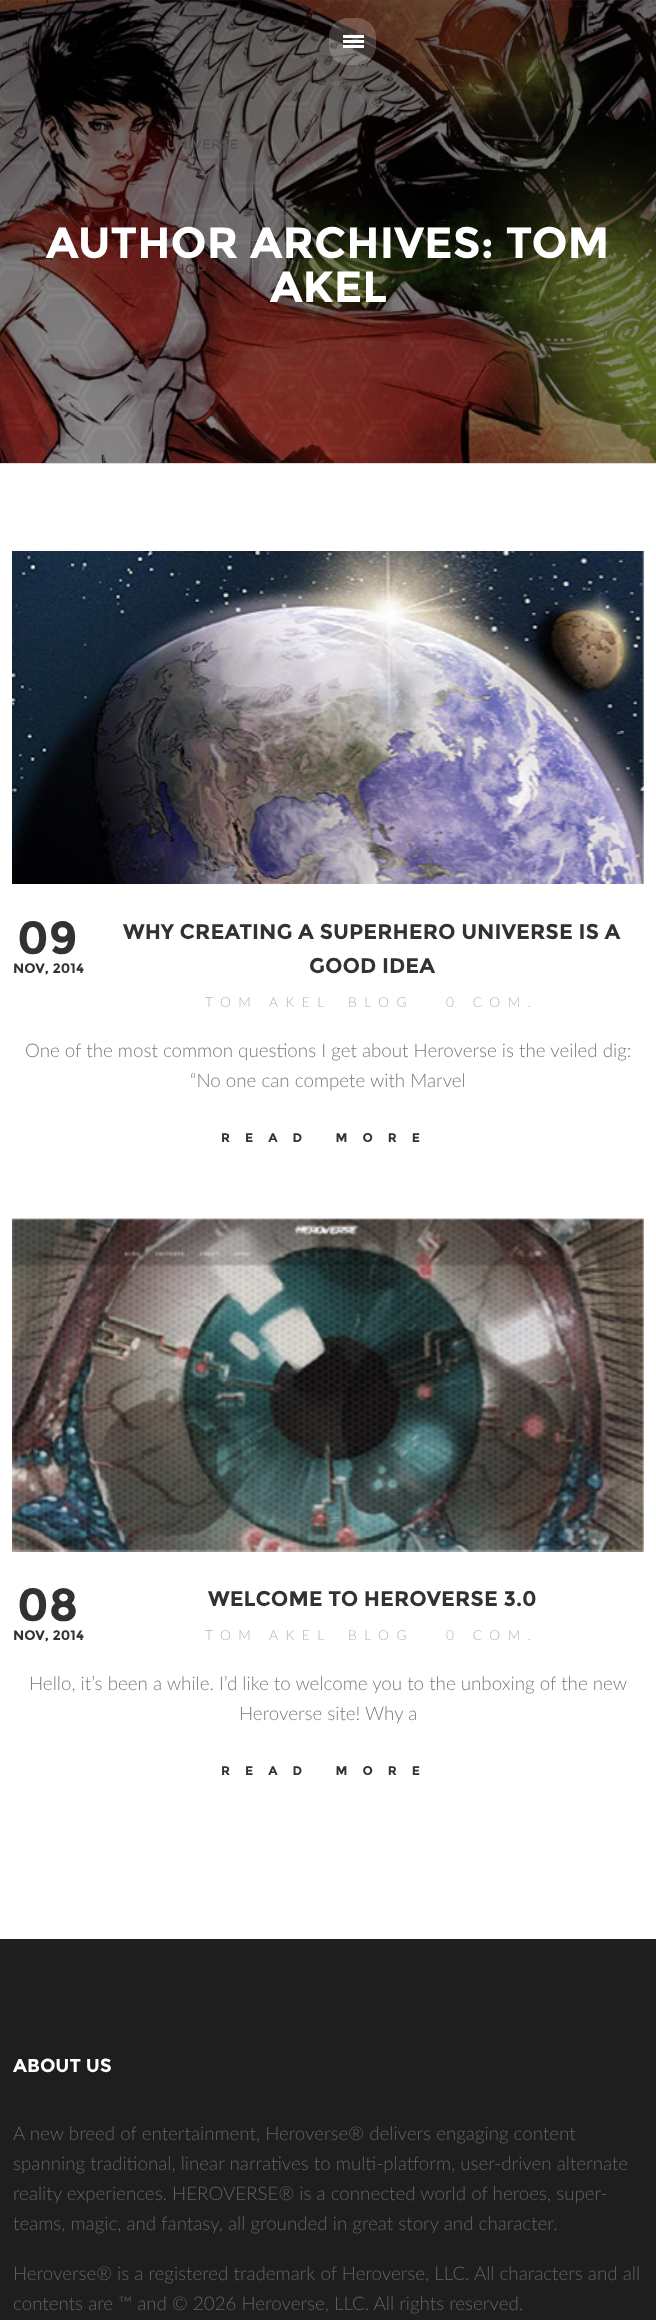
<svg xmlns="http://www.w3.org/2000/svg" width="656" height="2320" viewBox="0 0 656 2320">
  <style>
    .t1 { font: 13.75px Montserrat; fill: #564d4e; }
    .t2 { font: 13.75px Montserrat; fill: #523233; }
    .t3 { font: bold 43.75px Montserrat; fill: #fff; }
    .t4 { font: bold 46px Montserrat; fill: #323232; }
    .t5 { font: bold 13.75px Montserrat; fill: #323232; }
    .t6 { font: bold 21.25px Montserrat; fill: #323232; }
    .t7 { font: 300 13.75px Lato; letter-spacing: 7.5px; fill: #b2b2b2; }
    .t8 { font: 300 18.75px Lato; fill: #7a7a7a; }
    .t9 { font: bold 12.5px Montserrat; letter-spacing: 15px; fill: #323232; }
    .t10 { font: bold 18.75px Montserrat; fill: #fff; }
    .t11 { font: 300 18.75px Lato; fill: #626262; }
  </style>
  <rect width="100%" height="100%" fill="#fff"/>
  <image x="0" y="0" width="656" height="463" href="images/1.png"/>
  <rect x="329" y="18" width="47" height="47" rx="19" fill="#ffffff33"/>
  <rect x="343" y="45" width="21" height="3" fill="#fff"/>
  <rect x="343" y="40" width="21" height="3" fill="#fff"/>
  <rect x="343" y="35" width="21" height="3" fill="#fff"/>
  <text x="166" y="149" class="t1">UNIVERSE</text>
  <text x="174" y="274" class="t2">HOP</text>
  <rect x="0" y="463" width="656" height="1" fill="#ddd"/>
  <text x="46" y="258" class="t3">AUTHOR ARCHIVES: TOM</text>
  <text x="270" y="302" class="t3">AKEL</text>
  <image x="12" y="551" width="632" height="333" href="images/2.png"/>
  <text x="17" y="954" class="t4">09</text>
  <text x="13" y="973" class="t5">NOV, 2014</text>
  <text x="123" y="939" class="t6">WHY CREATING A SUPERHERO UNIVERSE IS A</text>
  <text x="309" y="973" class="t6">GOOD IDEA</text>
  <text x="205" y="1007" class="t7">TOM AKEL</text>
  <text x="348" y="1007" class="t7">BLOG</text>
  <text x="446" y="1007" class="t7">0 COM.</text>
  <text x="25" y="1057" class="t8">One of the most common questions I get about Heroverse is the veiled dig:</text>
  <text x="190" y="1087" class="t8">“No one can compete with Marvel</text>
  <text x="221" y="1142" class="t9">READ MORE</text>
  <image x="12" y="1218" width="632" height="334" href="images/3.png"/>
  <text x="17" y="1621" class="t4">08</text>
  <text x="13" y="1640" class="t5">NOV, 2014</text>
  <text x="208" y="1606" class="t6">WELCOME TO HEROVERSE 3.0</text>
  <text x="205" y="1640" class="t7">TOM AKEL</text>
  <text x="348" y="1640" class="t7">BLOG</text>
  <text x="446" y="1640" class="t7">0 COM.</text>
  <text x="29" y="1690" class="t8">Hello, it’s been a while. I’d like to welcome you to the unboxing of the new</text>
  <text x="239" y="1720" class="t8">Heroverse site! Why a</text>
  <text x="221" y="1775" class="t9">READ MORE</text>
  <rect x="0" y="1939" width="656" height="381" fill="#1e1e1e"/>
  <text x="13" y="2072" class="t10">ABOUT US</text>
  <text x="13" y="2140" class="t11">A new breed of entertainment, Heroverse® delivers engaging content</text>
  <text x="13" y="2170" class="t11">spanning traditional, linear narratives to multi-platform, user-driven alternate</text>
  <text x="13" y="2200" class="t11">reality experiences. HEROVERSE® is a connected world of heroes, super-</text>
  <text x="13" y="2230" class="t11">teams, magic, and fantasy, all grounded in great story and character.</text>
  <text x="13" y="2280" class="t11">Heroverse® is a registered trademark of Heroverse, LLC. All characters and all</text>
  <text x="13" y="2310" class="t11">contents are ™ and © 2026 Heroverse, LLC. All rights reserved.</text>
</svg>
